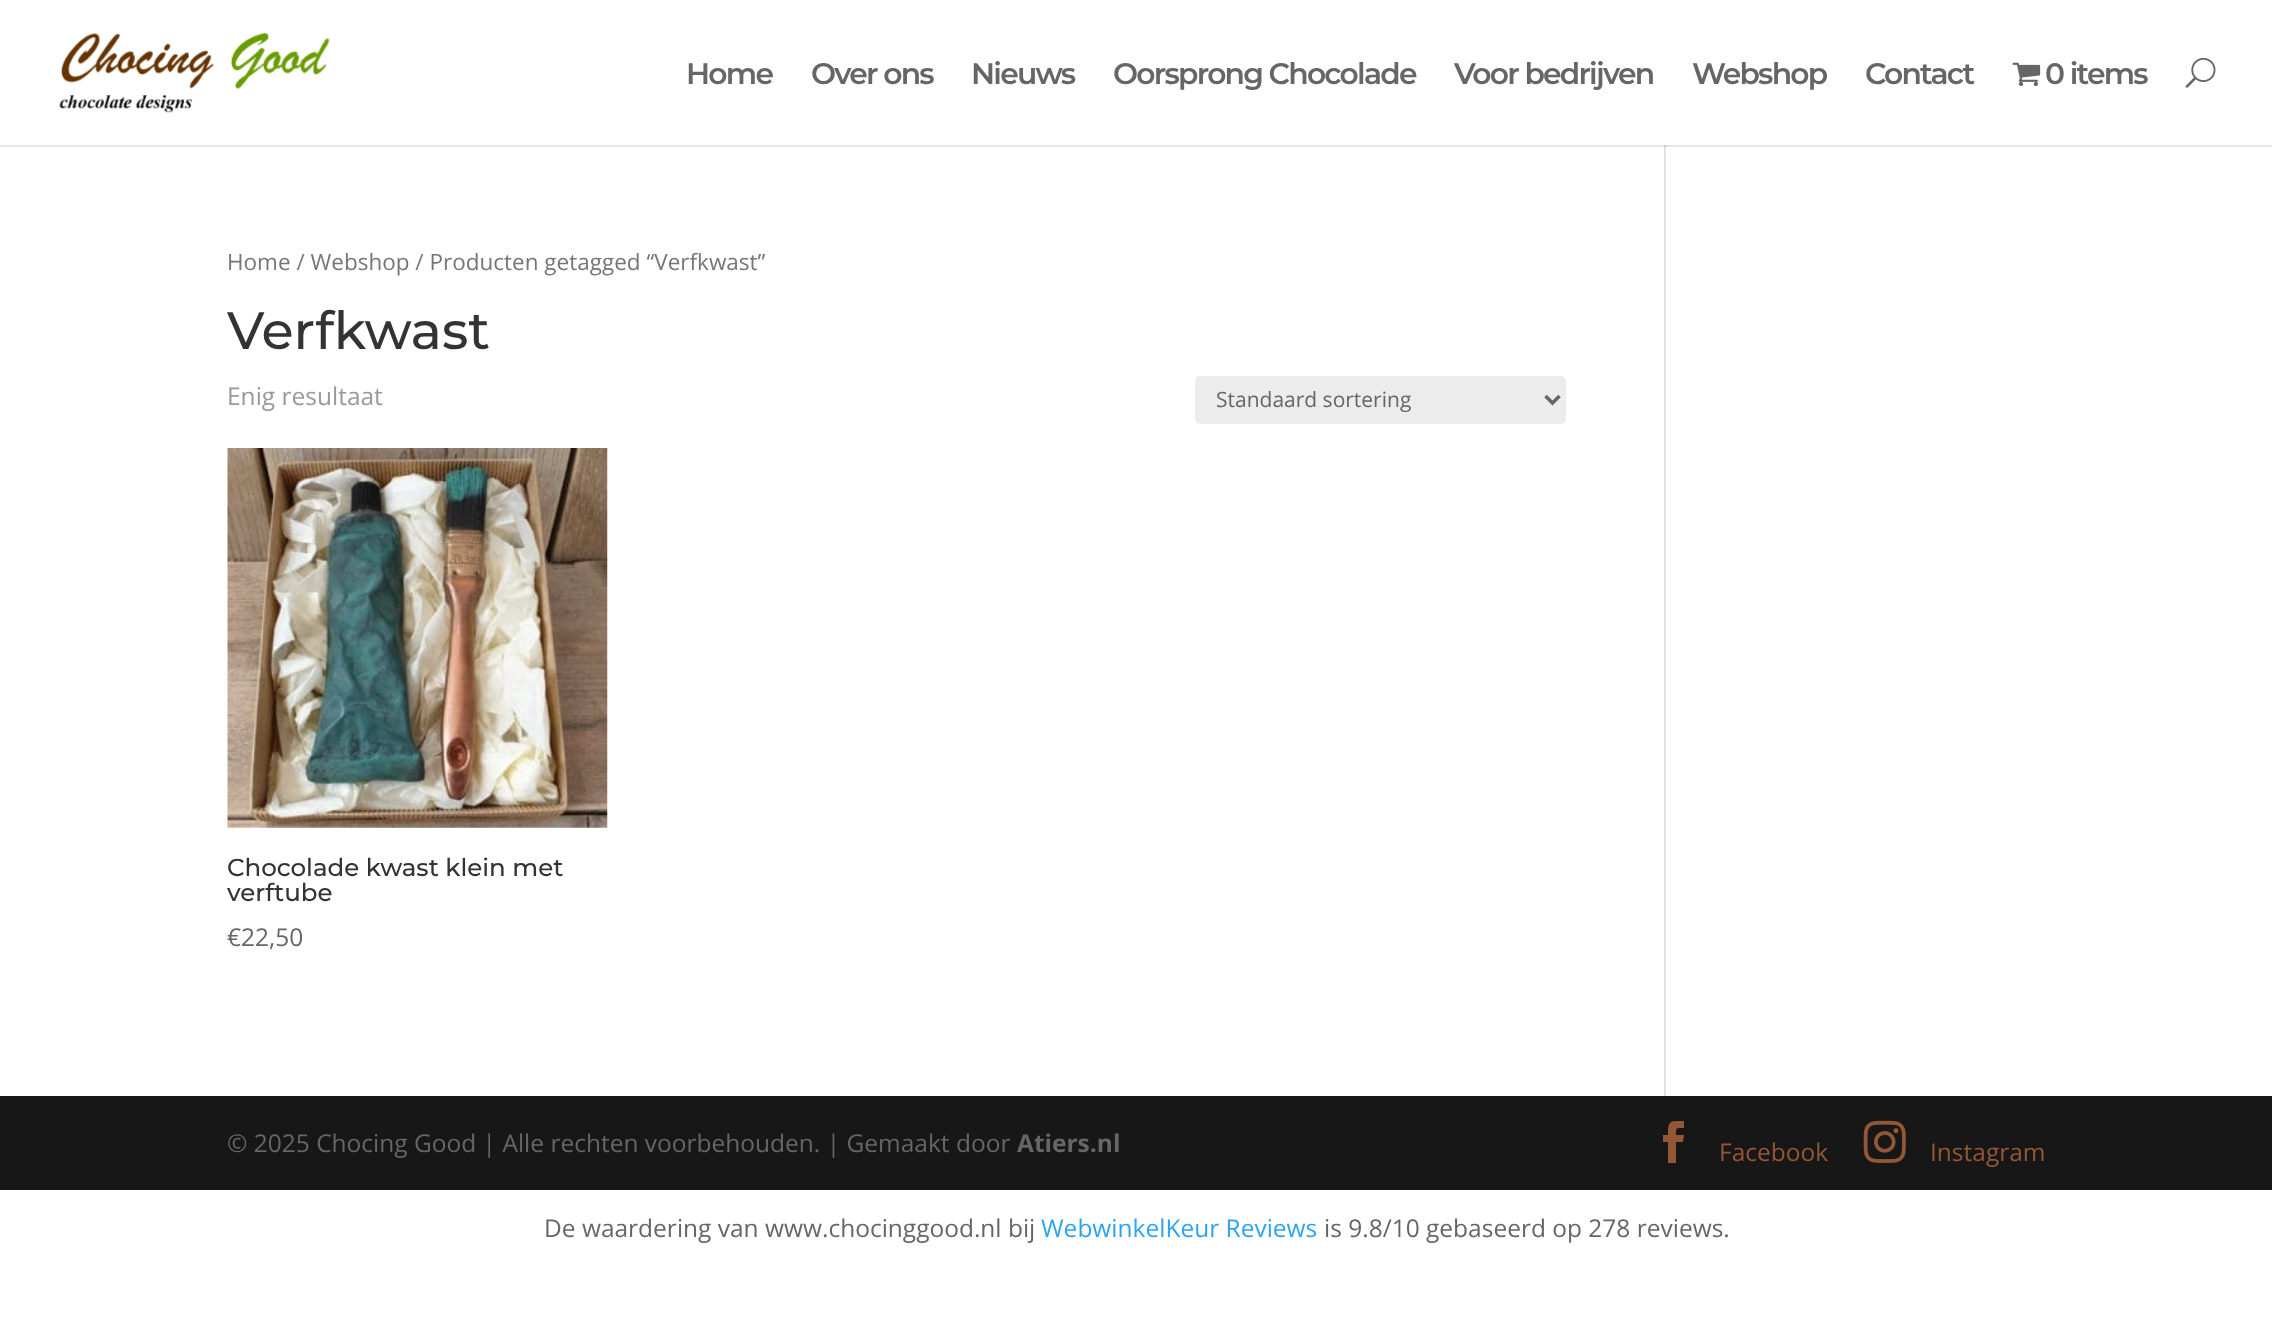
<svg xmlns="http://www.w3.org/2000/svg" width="2272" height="1329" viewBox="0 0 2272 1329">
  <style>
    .t1 { font: 600 29.75px Montserrat; letter-spacing: -1.75px; fill: #666; }
    .t2 { font: 22.5px Open Sans; fill: #767676; }
    .t3 { font: 500 52.5px Montserrat; fill: #333; }
    .t4 { font: 24.5px Open Sans; fill: #999; }
    .t5 { font: 21px Open Sans; fill: #666; }
    .t6 { font: 500 24.5px Montserrat; fill: #333; }
    .t7 { font: 24.5px Open Sans; fill: #666; }
    .t8 { font: bold 24.5px Open Sans; fill: #666; }
    .t9 { font: 24.5px Open Sans; fill: #925835; }
    .t10 { font: 24.5px Open Sans; fill: #2ea3f2; }
  </style>
  <rect width="100%" height="100%" fill="#fff"/>
  <rect x="0" y="145" width="2272" height="2" fill="#e6e6e6"/>
  <rect x="1664" y="140" width="2" height="956" fill="#e2e2e2"/>
  <rect x="1664" y="140" width="2" height="5" fill="#fff"/>
  <image x="59" y="33" width="271" height="80" href="images/1.png"/>
  <text x="686" y="84" class="t1">Home</text>
  <text x="811" y="84" class="t1">Over ons</text>
  <text x="971" y="84" class="t1">Nieuws</text>
  <text x="1113" y="84" class="t1">Oorsprong Chocolade</text>
  <text x="1454" y="84" class="t1">Voor bedrijven</text>
  <text x="1692" y="84" class="t1">Webshop</text>
  <text x="1865" y="84" class="t1">Contact</text>
  <image x="2012" y="62" width="29" height="25" href="images/2.png"/>
  <text x="2045" y="84" class="t1">0 items</text>
  <image x="2185" y="57" width="31" height="31" href="images/3.png"/>
  <text x="227" y="270" class="t2">Home / Webshop / Producten getagged “Verfkwast”</text>
  <text x="227" y="349" class="t3">Verfkwast</text>
  <text x="227" y="405" class="t4">Enig resultaat</text>
  <rect x="1195" y="376" width="371" height="48" rx="5" fill="#ececec"/>
  <path d="M1545.5 396L1552.5 403L1559.5 396" fill="none" stroke="#666" stroke-width="3.5"/>
  <text x="1216" y="407" class="t5">Standaard sortering</text>
  <image x="227" y="448" width="381" height="380" href="images/4.png"/>
  <text x="227" y="876" class="t6">Chocolade kwast klein met</text>
  <text x="227" y="901" class="t6">verftube</text>
  <text x="227" y="946" class="t7">€22,50</text>
  <rect x="1664" y="145" width="2" height="2" fill="#cbcbcb"/>
  <rect x="0" y="1096" width="2272" height="94" fill="#171717"/>
  <text x="227" y="1152" class="t7">© 2025 Chocing Good | Alle rechten voorbehouden. | Gemaakt door</text>
  <text x="1017" y="1152" class="t8">Atiers.nl</text>
  <path d="M1668 1163H1676V1142H1683L1684 1135H1676C1676 1127 1676 1128 1684 1128V1121C1670 1121 1668 1120 1668 1135H1663V1142H1668Z" fill="#925835"/>
  <text x="1719" y="1161" class="t9">Facebook</text>
  <image x="1863" y="1120" width="43" height="43" href="images/5.png"/>
  <text x="1930" y="1161" class="t9">Instagram</text>
  <text x="544" y="1237" class="t7">De waardering van www.chocinggood.nl bij</text>
  <text x="1041" y="1237" class="t10">WebwinkelKeur Reviews</text>
  <text x="1324" y="1237" class="t7">is 9.8/10 gebaseerd op 278 reviews.</text>
</svg>
